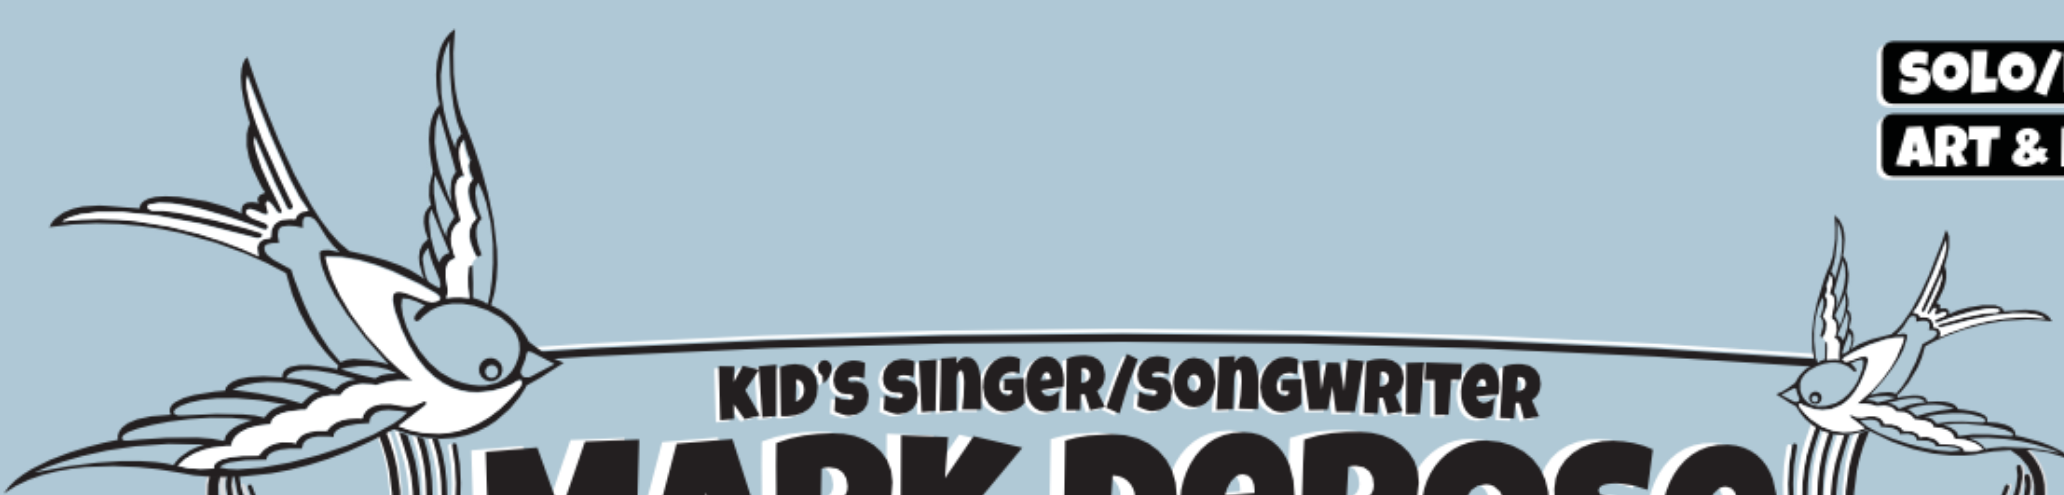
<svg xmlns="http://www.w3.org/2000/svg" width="2064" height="495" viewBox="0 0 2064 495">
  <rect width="100%" height="100%" fill="#afc8d6"/>
  <image x="3" y="28" width="2061" height="467" href="images/1.png"/>
  <image x="1876" y="40" width="188" height="68" href="images/2.png"/>
  <image x="1876" y="112" width="188" height="69" href="images/3.png"/>
</svg>
